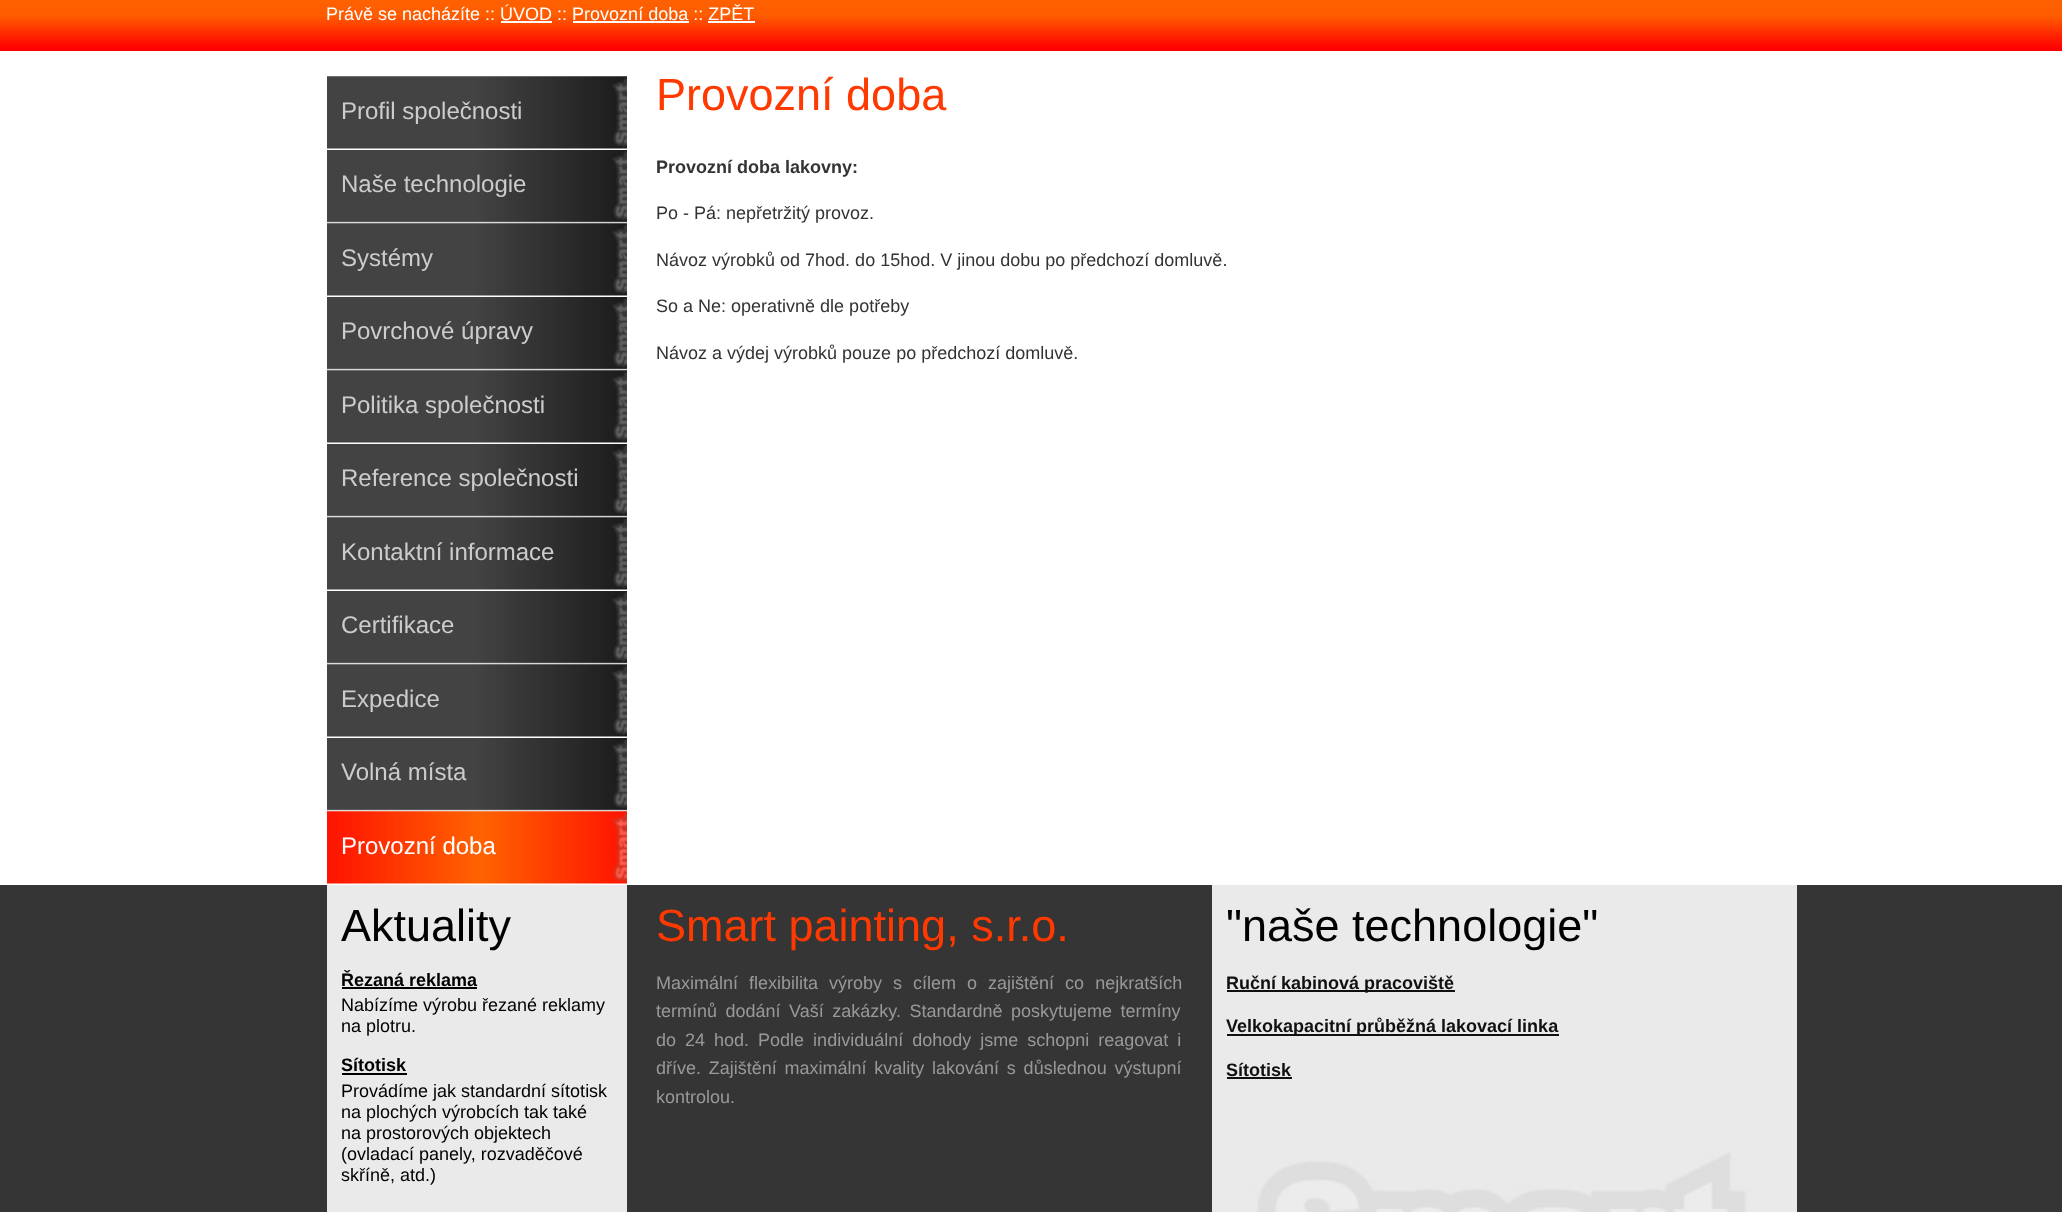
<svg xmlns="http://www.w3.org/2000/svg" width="2062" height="1212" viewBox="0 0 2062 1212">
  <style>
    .t1 { font: 18px Liberation Sans; fill: #fff; }
    .t2 { font: 24px Liberation Sans; fill: #ccc; }
    .t3 { font: 24px Liberation Sans; fill: #fff; }
    .t4 { font: 45px Liberation Sans; fill: #ff3900; }
    .t5 { font: bold 18px Liberation Sans; fill: #333; }
    .t6 { font: 18px Liberation Sans; fill: #333; }
    .t7 { font: 45px Liberation Sans; fill: #000; }
    .t8 { font: bold 18px Liberation Sans; fill: #000; }
    .t9 { font: 18px Liberation Sans; fill: #000; }
    .t10 { font: 18px Liberation Sans; fill: #999; }
    .t11 { font: bold 18px Liberation Sans; fill: #101010; }
  </style>
  <rect width="100%" height="100%" fill="#fff"/>
  <image x="0" y="0" width="2062" height="51" href="images/1.png"/>
  <text x="326" y="20" class="t1">Právě se nacházíte :: ÚVOD :: Provozní doba :: ZPĚT</text>
  <rect x="501" y="21" width="51" height="2" fill="#fff"/>
  <rect x="573" y="21" width="116" height="2" fill="#fff"/>
  <rect x="708" y="21" width="47" height="2" fill="#fff"/>
  <image x="327" y="76" width="300" height="73" href="images/2.png"/>
  <image x="327" y="76" width="300" height="1" href="images/3.png"/>
  <text x="341" y="119" class="t2">Profil společnosti</text>
  <image x="327" y="150" width="300" height="73" href="images/4.png"/>
  <text x="341" y="192" class="t2">Naše technologie</text>
  <image x="327" y="223" width="300" height="73" href="images/2.png"/>
  <image x="327" y="223" width="300" height="1" href="images/3.png"/>
  <text x="341" y="266" class="t2">Systémy</text>
  <image x="327" y="297" width="300" height="73" href="images/4.png"/>
  <text x="341" y="339" class="t2">Povrchové úpravy</text>
  <image x="327" y="370" width="300" height="73" href="images/2.png"/>
  <image x="327" y="370" width="300" height="1" href="images/3.png"/>
  <text x="341" y="413" class="t2">Politika společnosti</text>
  <image x="327" y="444" width="300" height="73" href="images/4.png"/>
  <text x="341" y="486" class="t2">Reference společnosti</text>
  <image x="327" y="517" width="300" height="73" href="images/2.png"/>
  <image x="327" y="517" width="300" height="1" href="images/3.png"/>
  <text x="341" y="560" class="t2">Kontaktní informace</text>
  <image x="327" y="591" width="300" height="73" href="images/4.png"/>
  <text x="341" y="633" class="t2">Certifikace</text>
  <image x="327" y="664" width="300" height="73" href="images/2.png"/>
  <image x="327" y="664" width="300" height="1" href="images/3.png"/>
  <text x="341" y="707" class="t2">Expedice</text>
  <image x="327" y="738" width="300" height="73" href="images/4.png"/>
  <text x="341" y="780" class="t2">Volná místa</text>
  <image x="327" y="811" width="300" height="73" href="images/5.png"/>
  <image x="327" y="811" width="300" height="1" href="images/6.png"/>
  <text x="341" y="854" class="t3">Provozní doba</text>
  <text x="656" y="110" class="t4">Provozní doba</text>
  <text x="656" y="173" class="t5">Provozní doba lakovny:</text>
  <text x="656" y="219" class="t6">Po - Pá: nepřetržitý provoz.</text>
  <text x="656" y="266" class="t6">Návoz výrobků od 7hod. do 15hod. V jinou dobu po předchozí domluvě.</text>
  <text x="656" y="312" class="t6">So a Ne: operativně dle potřeby</text>
  <text x="656" y="359" class="t6">Návoz a výdej výrobků pouze po předchozí domluvě.</text>
  <rect x="0" y="885" width="2062" height="327" fill="#353535"/>
  <rect x="327" y="885" width="300" height="327" fill="#eaeaea"/>
  <text x="341" y="941" class="t7">Aktuality</text>
  <text x="341" y="986" class="t8">Řezaná reklama</text>
  <rect x="342" y="987" width="135" height="2" fill="#000"/>
  <text x="341" y="1011" class="t9">Nabízíme výrobu řezané reklamy</text>
  <text x="341" y="1032" class="t9">na plotru.</text>
  <text x="341" y="1071" class="t8">Sítotisk</text>
  <rect x="342" y="1073" width="65" height="2" fill="#000"/>
  <text x="341" y="1097" class="t9">Provádíme jak standardní sítotisk</text>
  <text x="341" y="1118" class="t9">na plochých výrobcích tak také</text>
  <text x="341" y="1139" class="t9">na prostorových objektech</text>
  <text x="341" y="1160" class="t9">(ovladací panely, rozvaděčové</text>
  <text x="341" y="1181" class="t9">skříně, atd.)</text>
  <text x="656" y="941" class="t4">Smart painting, s.r.o.</text>
  <text x="656" y="989" word-spacing="6" class="t10">Maximální flexibilita výroby s cílem o zajištění co nejkratších</text>
  <text x="656" y="1017" word-spacing="3.5" class="t10">termínů dodání Vaší zakázky. Standardně poskytujeme termíny</text>
  <text x="656" y="1046" word-spacing="4" class="t10">do 24 hod. Podle individuální dohody jsme schopni reagovat i</text>
  <text x="656" y="1074" word-spacing="2.75" class="t10">dříve. Zajištění maximální kvality lakování s důslednou výstupní</text>
  <text x="656" y="1103" class="t10">kontrolou.</text>
  <image x="1212" y="885" width="585" height="327" href="images/7.png"/>
  <text x="1226" y="941" class="t7">"naše technologie"</text>
  <rect x="1227" y="990" width="228" height="2" fill="#101010"/>
  <text x="1226" y="989" class="t11">Ruční kabinová pracoviště</text>
  <rect x="1227" y="1034" width="332" height="2" fill="#101010"/>
  <text x="1226" y="1032" class="t11">Velkokapacitní průběžná lakovací linka</text>
  <text x="1226" y="1076" class="t11">Sítotisk</text>
  <rect x="1227" y="1077" width="65" height="2" fill="#101010"/>
</svg>
